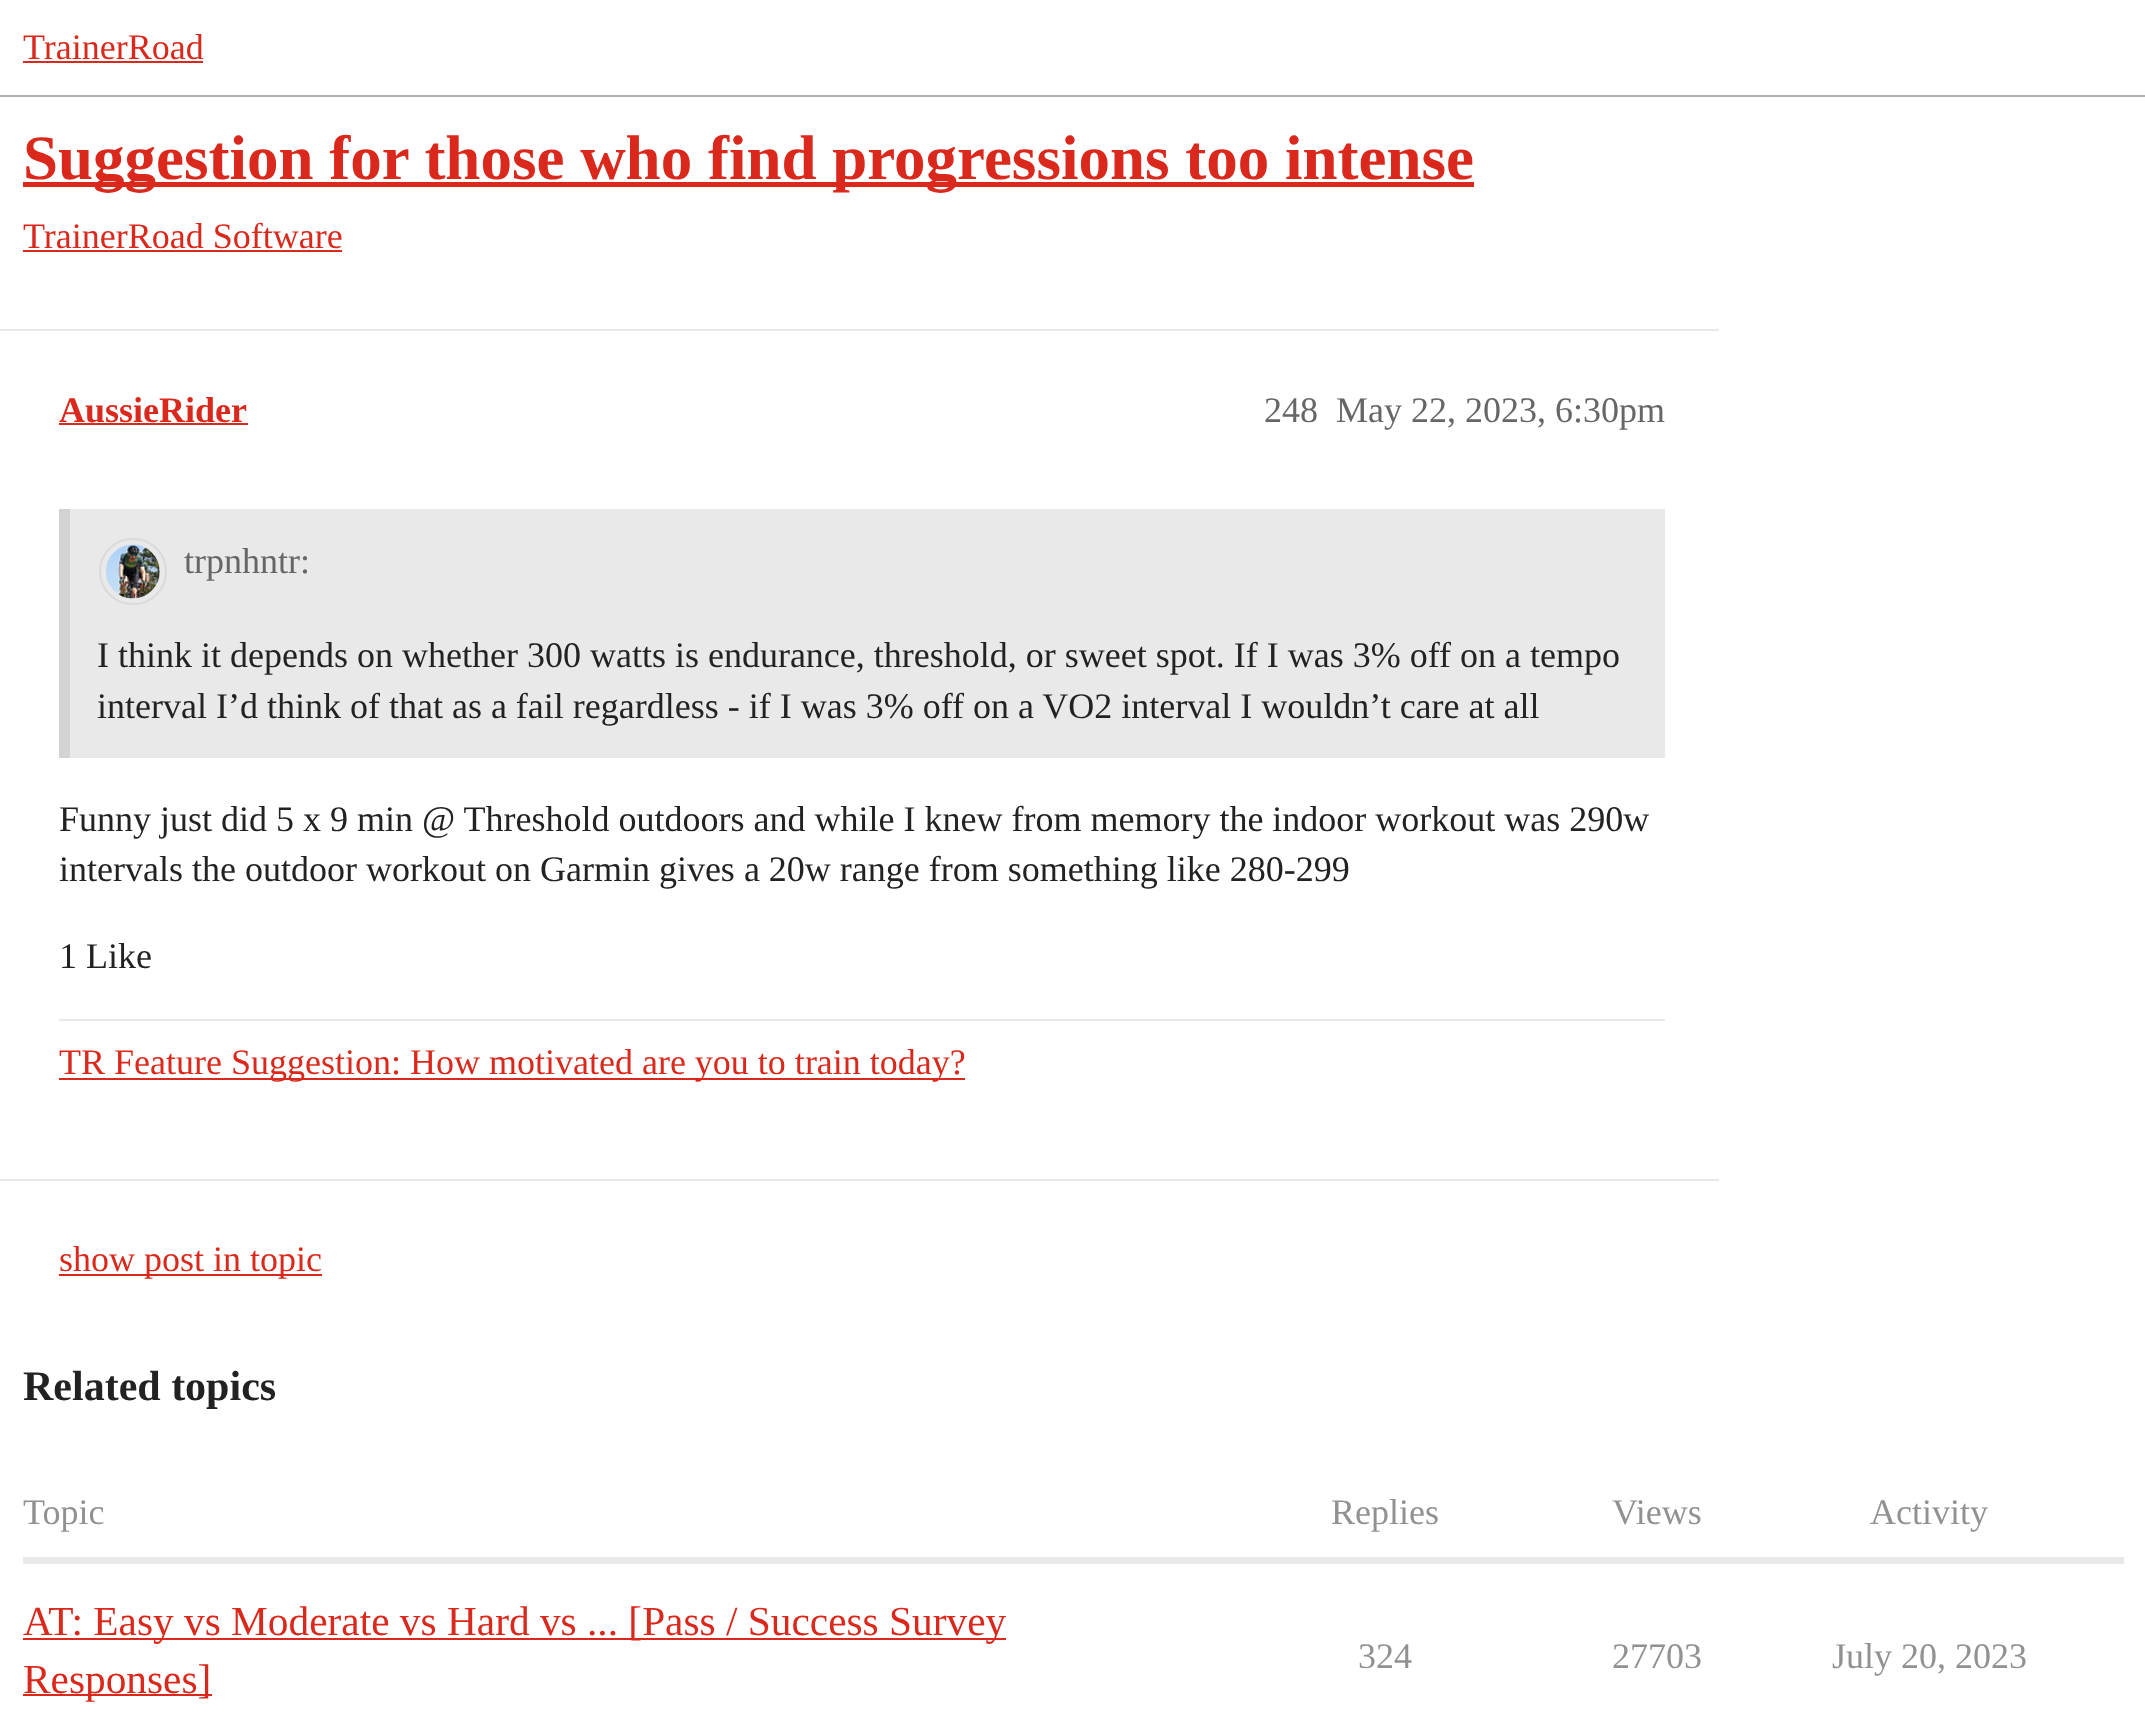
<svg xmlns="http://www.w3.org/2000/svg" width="2145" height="1731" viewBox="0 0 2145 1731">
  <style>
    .t1 { font: 36px Liberation Serif; fill: #da291c; }
    .t2 { font: bold 63px Liberation Serif; fill: #da291c; }
    .t3 { font: bold 36px Liberation Serif; fill: #da291c; }
    .t4 { font: 36px Liberation Serif; fill: #666; }
    .t5 { font: 36px Liberation Serif; fill: #222; }
    .t6 { font: bold 42px Liberation Serif; fill: #222; }
    .t7 { font: 36px Liberation Serif; fill: #919191; }
    .t8 { font: 41.35px Liberation Serif; fill: #da291c; }
  </style>
  <rect width="100%" height="100%" fill="#fff"/>
  <rect x="0" y="95" width="2145" height="2" fill="#afafaf"/>
  <text x="23" y="59" class="t1">TrainerRoad</text>
  <rect x="23" y="61" width="180" height="2" fill="#da291c"/>
  <rect x="23" y="182" width="1451" height="5" fill="#da291c"/>
  <text x="23" y="179" class="t2">Suggestion for those who find progressions too intense</text>
  <text x="23" y="248" class="t1">TrainerRoad Software</text>
  <rect x="23" y="250" width="319" height="2" fill="#da291c"/>
  <rect x="0" y="329" width="1719" height="2" fill="#e9e9e9"/>
  <text x="59" y="422" class="t3">AussieRider</text>
  <rect x="59" y="423" width="189" height="2" fill="#da291c"/>
  <text x="1264" y="422" class="t4">248</text>
  <text x="1336" y="422" class="t4">May 22, 2023, 6:30pm</text>
  <rect x="70" y="509" width="1595" height="249" fill="#e9e9e9"/>
  <rect x="59" y="509" width="11" height="249" fill="#d3d3d3"/>
  <rect x="100" y="539" width="66" height="65" rx="32.5" fill="none" stroke="#dadada" stroke-width="2"/>
  <image x="106" y="544" width="54" height="55" href="images/1.png"/>
  <text x="184" y="573" class="t4">trpnhntr:</text>
  <text x="97" y="667" class="t5">I think it depends on whether 300 watts is endurance, threshold, or sweet spot. If I was 3% off on a tempo</text>
  <text x="97" y="718" class="t5">interval I’d think of that as a fail regardless - if I was 3% off on a VO2 interval I wouldn’t care at all</text>
  <text x="59" y="831" class="t5">Funny just did 5 x 9 min @ Threshold outdoors and while I knew from memory the indoor workout was 290w</text>
  <text x="59" y="881" class="t5">intervals the outdoor workout on Garmin gives a 20w range from something like 280-299</text>
  <text x="59" y="968" class="t5">1 Like</text>
  <rect x="59" y="1019" width="1606" height="2" fill="#e9e9e9"/>
  <rect x="59" y="1078" width="906" height="2" fill="#da291c"/>
  <text x="59" y="1074" class="t1">TR Feature Suggestion: How motivated are you to train today?</text>
  <rect x="0" y="1179" width="1719" height="2" fill="#e9e9e9"/>
  <rect x="59" y="1274" width="263" height="2" fill="#da291c"/>
  <text x="59" y="1271" class="t1">show post in topic</text>
  <text x="23" y="1400" class="t6">Related topics</text>
  <text x="23" y="1524" class="t7">Topic</text>
  <text x="1331" y="1524" class="t7">Replies</text>
  <text x="1612" y="1524" class="t7">Views</text>
  <text x="1870" y="1524" class="t7">Activity</text>
  <rect x="23" y="1557" width="2101" height="7" fill="#e9e9e9"/>
  <rect x="23" y="1638" width="983" height="2" fill="#da291c"/>
  <text x="23" y="1635" class="t8">AT: Easy vs Moderate vs Hard vs ... [Pass / Success Survey</text>
  <rect x="23" y="1694" width="189" height="2" fill="#da291c"/>
  <text x="23" y="1693" class="t8">Responses]</text>
  <text x="1358" y="1668" class="t7">324</text>
  <text x="1612" y="1668" class="t7">27703</text>
  <text x="1832" y="1668" class="t7">July 20, 2023</text>
</svg>
